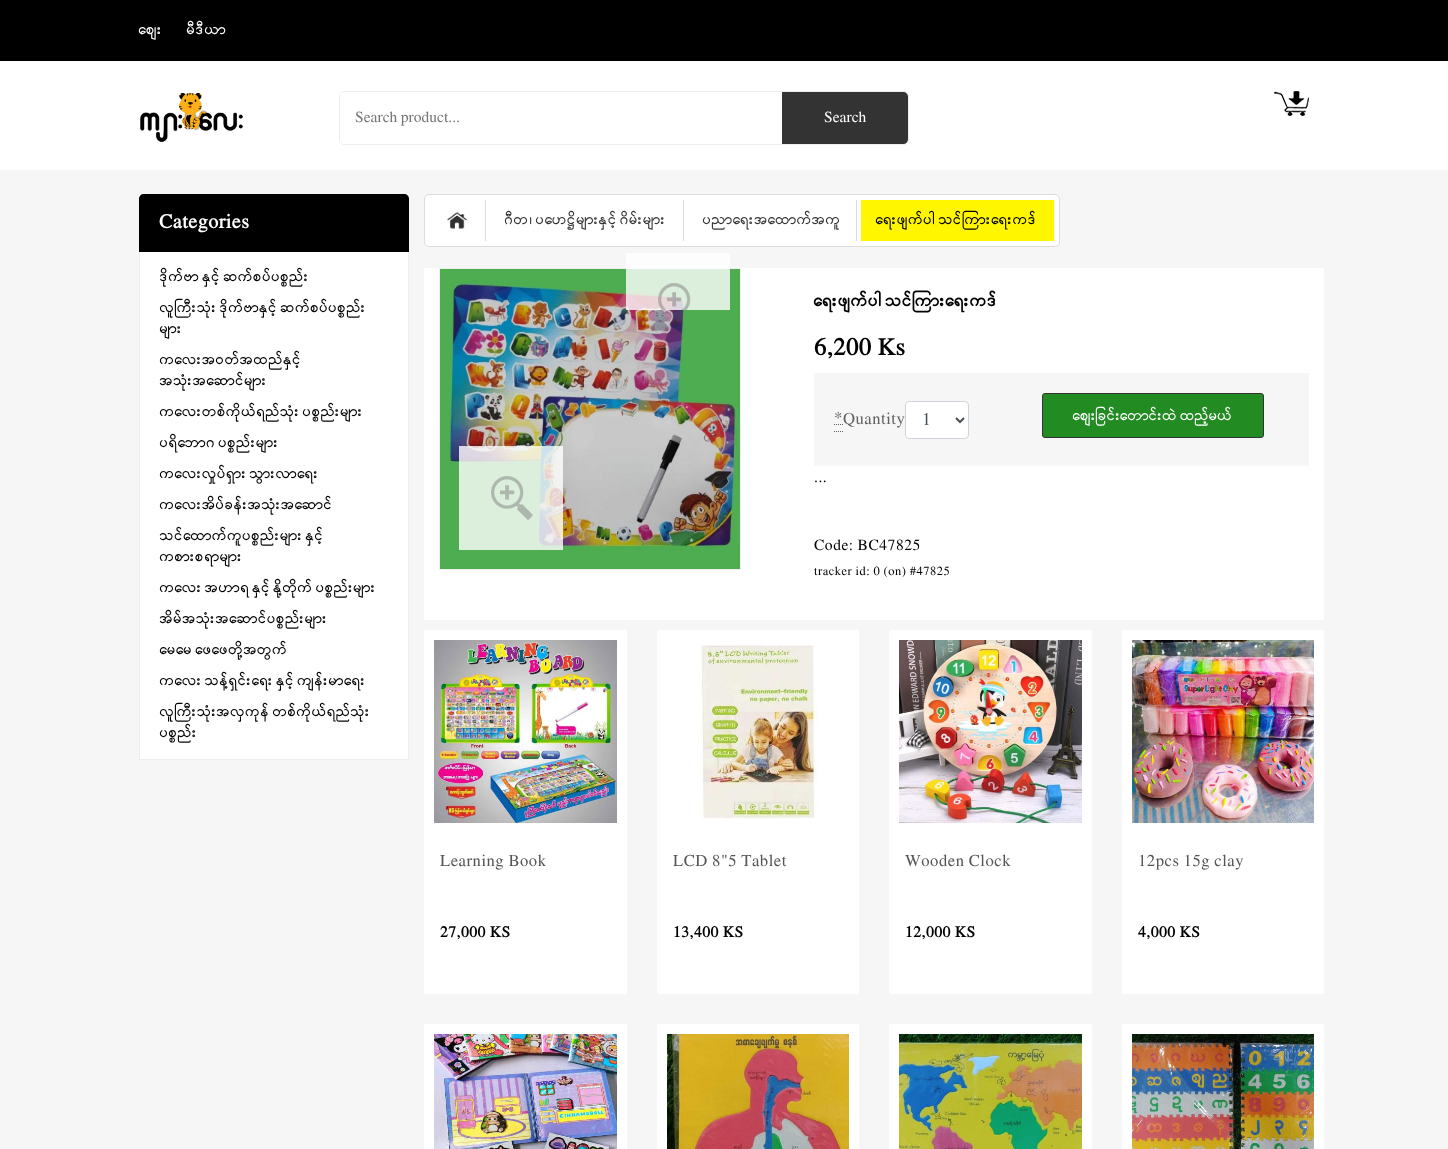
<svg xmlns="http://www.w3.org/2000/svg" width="1448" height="1149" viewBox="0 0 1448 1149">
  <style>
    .t1 { font: 14px 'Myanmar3'; letter-spacing: 0.5px; fill: #fff; }
    .t2 { font: 14px 'Myanmar3'; fill: #757575; }
    .t3 { font: 14px 'Myanmar3'; fill: #fff; }
    .t4 { font: bold 18px 'Myanmar3'; letter-spacing: 0.5px; fill: #fff; }
    .t5 { font: 14px 'Myanmar3'; letter-spacing: 0.5px; fill: #000; }
    .t6 { font: 14px 'Myanmar3'; letter-spacing: 0.5px; fill: #333; }
    .t7 { font: bold 16px 'Myanmar3'; letter-spacing: 0.5px; fill: #000; }
    .t8 { font: bold 22px 'Myanmar3'; letter-spacing: 0.5px; fill: #000; }
    .t9 { font: 15px 'Myanmar3'; letter-spacing: 0.5px; fill: #626262; }
    .t10 { font: 16px 'Myanmar3'; fill: #495057; }
    .t11 { font: 11.25px 'Myanmar3'; letter-spacing: 0.5px; fill: #000; }
    .t12 { font: 15px 'Myanmar3'; letter-spacing: 0.5px; fill: #555; }
    .t13 { font: bold 14px 'Myanmar3'; letter-spacing: 0.5px; fill: #000; }
  </style>
  <rect width="100%" height="100%" fill="#f6f6f6"/>
  <rect x="0" y="0" width="1448" height="61" fill="#000"/>
  <text x="139" y="34" class="t1">စျေး</text>
  <text x="187" y="34" class="t1">မီဒီယာ</text>
  <rect x="0" y="61" width="1448" height="109" fill="#fff"/>
  <image x="140" y="92" width="103" height="50" href="images/1.png"/>
  <rect x="339.5" y="91.5" width="569" height="53" rx="4.5" fill="none" stroke="#ededed"/>
  <rect x="340" y="92" width="438" height="52" rx="3" fill="#fff"/>
  <text x="355" y="122" class="t2">Search product...</text>
  <path d="M782 92H903C906 92 908 94 908 97V139C908 142 906 144 903 144H782Z" fill="#333"/>
  <text x="824" y="122" class="t3">Search</text>
  <image x="1274" y="91" width="35" height="25" href="images/2.png"/>
  <path d="M144 194H404C407 194 409 196 409 199V252H139V199C139 196 141 194 144 194Z" fill="#000"/>
  <text x="159" y="228" class="t4">Categories</text>
  <rect x="140" y="252" width="268" height="507" fill="#fff"/>
  <rect x="408" y="252" width="1" height="508" fill="#ededed"/>
  <rect x="139" y="759" width="270" height="1" fill="#ededed"/>
  <rect x="139" y="252" width="1" height="508" fill="#ededed"/>
  <text x="160" y="281" word-spacing="-1" class="t5">ဒိုက်ဗာ နှင့် ဆက်စပ်ပစ္စည်း</text>
  <text x="160" y="312" word-spacing="-1" class="t5">လူကြီးသုံး ဒိုက်ဗာနှင့် ဆက်စပ်ပစ္စည်း</text>
  <text x="160" y="333" class="t5">များ</text>
  <text x="160" y="364" class="t5">ကလေးအဝတ်အထည်နှင့်</text>
  <text x="160" y="385" class="t5">အသုံးအဆောင်များ</text>
  <text x="160" y="416" word-spacing="-1" class="t5">ကလေးတစ်ကိုယ်ရည်သုံး ပစ္စည်းများ</text>
  <text x="160" y="447" word-spacing="-1" class="t5">ပရိဘောဂ ပစ္စည်းများ</text>
  <text x="160" y="478" word-spacing="-1" class="t5">ကလေးလှုပ်ရှား သွားလာရေး</text>
  <text x="160" y="509" class="t5">ကလေးအိပ်ခန်းအသုံးအဆောင်</text>
  <text x="160" y="540" word-spacing="-1" class="t5">သင်ထောက်ကူပစ္စည်းများ နှင့်</text>
  <text x="160" y="561" class="t5">ကစားစရာများ</text>
  <text x="160" y="592" word-spacing="-1" class="t5">ကလေး အဟာရ နှင့် နို့တိုက် ပစ္စည်းများ</text>
  <text x="160" y="623" class="t5">အိမ်အသုံးအဆောင်ပစ္စည်းများ</text>
  <text x="160" y="654" word-spacing="-1" class="t5">မေမေ ဖေဖေတို့အတွက်</text>
  <text x="160" y="685" word-spacing="-1" class="t5">ကလေး သန့်ရှင်းရေး နှင့် ကျန်းမာရေး</text>
  <text x="160" y="716" word-spacing="-1" class="t5">လူကြီးသုံးအလှကုန် တစ်ကိုယ်ရည်သုံး</text>
  <text x="160" y="737" class="t5">ပစ္စည်း</text>
  <rect x="424.5" y="194.5" width="635" height="52" rx="4.5" fill="#fff" stroke="#ddd"/>
  <rect x="485" y="200" width="1" height="41" fill="#ddd"/>
  <image x="447" y="212" width="20" height="17" href="images/3.png"/>
  <rect x="683" y="200" width="1" height="41" fill="#ddd"/>
  <text x="505" y="224" word-spacing="-1" class="t6">ဂီတ၊ ပဟေဋ္ဌိများနှင့် ဂိမ်းများ</text>
  <rect x="856" y="200" width="1" height="41" fill="#ddd"/>
  <text x="703" y="224" class="t6">ပညာရေးအထောက်အကူ</text>
  <rect x="861" y="200" width="193" height="41" fill="#fff600"/>
  <text x="876" y="224" word-spacing="-1" class="t5">ရေးဖျက်ပါ သင်ကြားရေးကဒ်</text>
  <rect x="424" y="268" width="900" height="352" fill="#fff"/>
  <rect x="439.5" y="268.5" width="301" height="301" fill="none" stroke="#eee"/>
  <image x="440" y="269" width="300" height="300" href="images/5.png"/>
  <image x="626" y="253" width="104" height="57" href="images/4.png"/>
  <image x="459" y="446" width="104" height="104" href="images/6.png"/>
  <text x="814" y="306" word-spacing="-1" class="t7">ရေးဖျက်ပါ သင်ကြားရေးကဒ်</text>
  <text x="814" y="355" class="t8">6,200 Ks</text>
  <rect x="814" y="373" width="495" height="93" fill="#f6f6f6"/>
  <path d="M834 431.5H843M834 424.5H843" fill="none" stroke="#626262" stroke-dasharray="1 1"/>
  <text x="834" y="423" class="t9">*</text>
  <text x="843" y="424" class="t9">Quantity</text>
  <rect x="905.5" y="401.5" width="63" height="37" rx="3.5" fill="#fff" stroke="#ced4da"/>
  <path d="M956 418L960 422L964 418" fill="none" stroke="#495057" stroke-width="2"/>
  <text x="922" y="425" class="t10">1</text>
  <rect x="1042.5" y="393.5" width="221" height="44" rx="2.5" fill="#228b22" stroke="#333"/>
  <text x="1073" y="420" class="t3">စျေးခြင်းတောင်းထဲ ထည့်မယ်</text>
  <text x="814" y="482" class="t5">...</text>
  <text x="814" y="550" class="t5">Code: BC47825</text>
  <text x="814" y="575" class="t11">tracker id: 0 (on) #47825</text>
  <rect x="424" y="630" width="203" height="364" fill="#fff"/>
  <image x="434" y="640" width="183" height="183" href="images/7.png"/>
  <text x="440" y="866" class="t12">Learning Book</text>
  <text x="440" y="937" class="t13">27,000 KS</text>
  <rect x="657" y="630" width="202" height="364" fill="#fff"/>
  <image x="700" y="644" width="119" height="175" href="images/8.png"/>
  <text x="673" y="866" class="t12">LCD 8"5 Tablet</text>
  <text x="673" y="937" class="t13">13,400 KS</text>
  <rect x="889" y="630" width="203" height="364" fill="#fff"/>
  <image x="899" y="640" width="183" height="183" href="images/9.png"/>
  <text x="905" y="866" class="t12">Wooden Clock</text>
  <text x="905" y="937" class="t13">12,000 KS</text>
  <rect x="1122" y="630" width="202" height="364" fill="#fff"/>
  <image x="1132" y="640" width="182" height="183" href="images/10.png"/>
  <text x="1138" y="866" class="t12">12pcs 15g clay</text>
  <text x="1138" y="937" class="t13">4,000 KS</text>
  <rect x="424" y="1024" width="203" height="125" fill="#fff"/>
  <image x="434" y="1034" width="183" height="115" href="images/11.png"/>
  <rect x="657" y="1024" width="202" height="125" fill="#fff"/>
  <image x="667" y="1034" width="182" height="115" href="images/12.png"/>
  <rect x="889" y="1024" width="203" height="125" fill="#fff"/>
  <image x="899" y="1034" width="183" height="115" href="images/13.png"/>
  <rect x="1122" y="1024" width="202" height="125" fill="#fff"/>
  <image x="1132" y="1034" width="182" height="115" href="images/14.png"/>
</svg>
